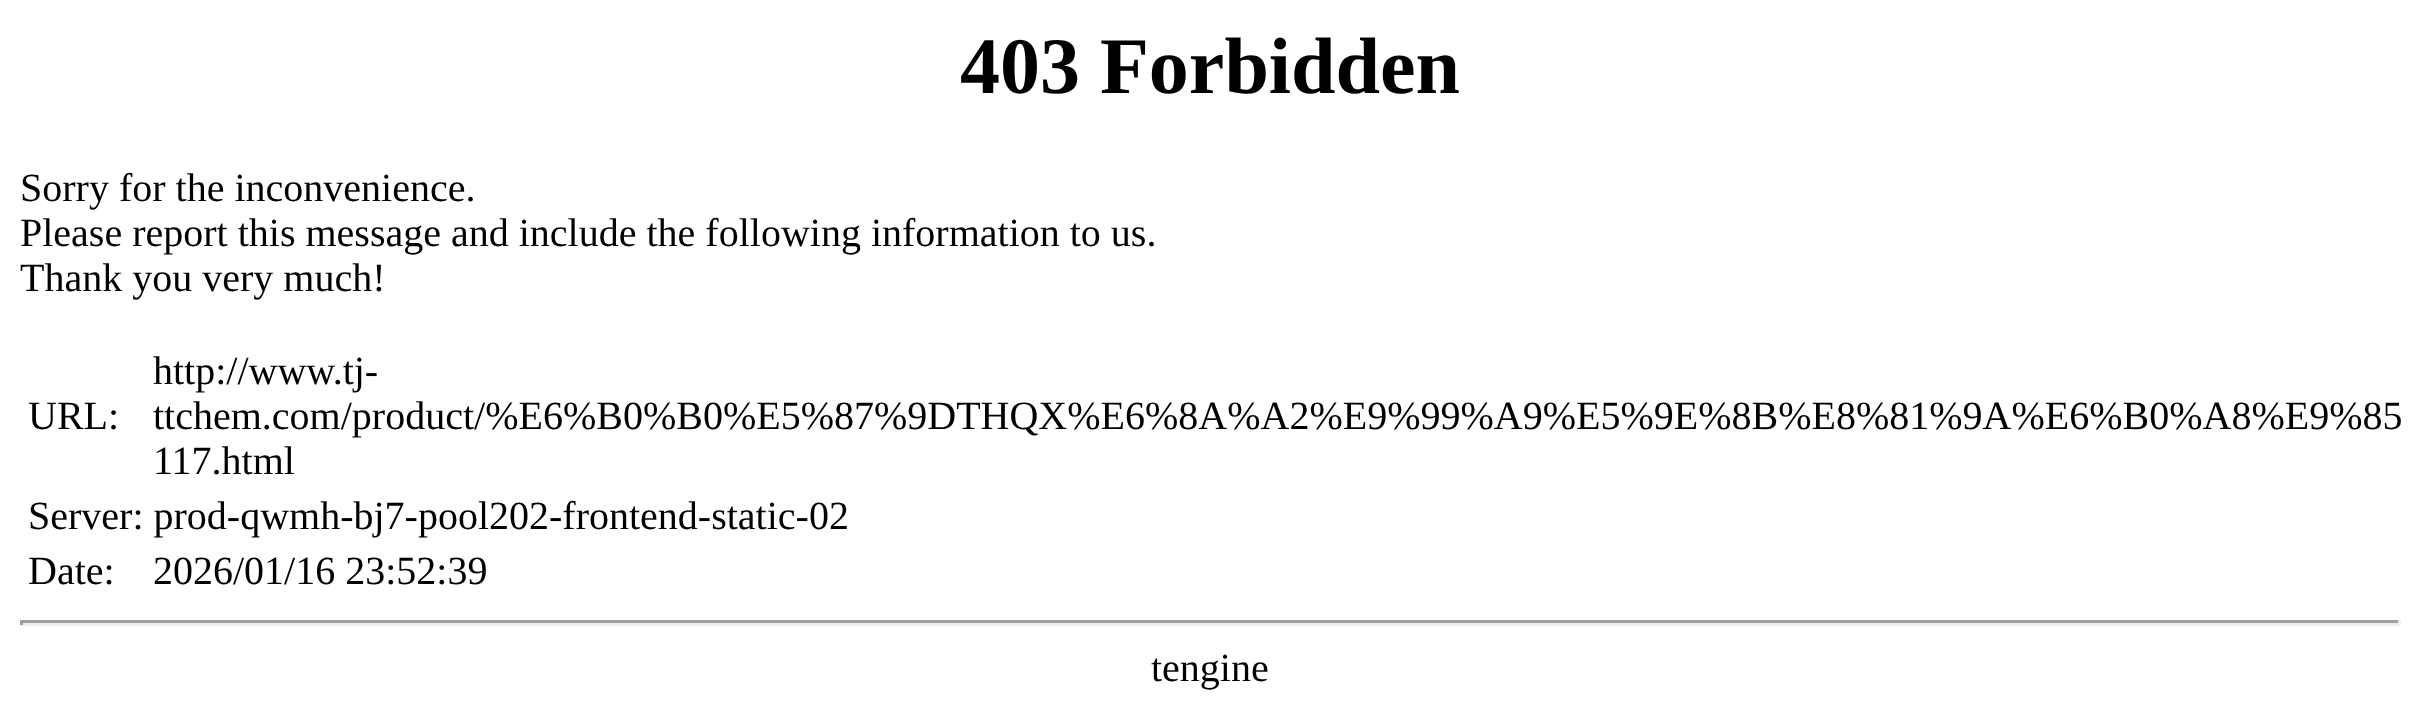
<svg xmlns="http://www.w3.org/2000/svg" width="2418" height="720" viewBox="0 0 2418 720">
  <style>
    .t1 { font: bold 80px Liberation Serif; fill: #000; }
    .t2 { font: 40px Liberation Serif; fill: #000; }
  </style>
  <rect width="100%" height="100%" fill="#fff"/>
  <text x="960" y="93" class="t1">403 Forbidden</text>
  <text x="20" y="201" class="t2">Sorry for the inconvenience.</text>
  <text x="20" y="246" class="t2">Please report this message and include the following information to us.</text>
  <text x="20" y="291" class="t2">Thank you very much!</text>
  <text x="28" y="429" class="t2">URL:</text>
  <text x="153" y="384" class="t2">http://www.tj-</text>
  <text x="153" y="429" class="t2">ttchem.com/product/%E6%B0%B0%E5%87%9DTHQX%E6%8A%A2%E9%99%A9%E5%9E%8B%E8%81%9A%E6%B0%A8%E9%85</text>
  <text x="153" y="474" class="t2">117.html</text>
  <text x="28" y="529" class="t2">Server: prod-qwmh-bj7-pool202-frontend-static-02</text>
  <text x="28" y="584" class="t2">Date:</text>
  <text x="153" y="584" class="t2">2026/01/16 23:52:39</text>
  <rect x="20" y="620" width="2380" height="3" fill="#9f9f9f"/>
  <rect x="2398" y="620" width="3" height="5" fill="#eee"/>
  <rect x="20" y="623" width="2380" height="3" fill="#eee"/>
  <rect x="20" y="620" width="3" height="5" fill="#9f9f9f"/>
  <text x="1151" y="681" class="t2">tengine</text>
</svg>
